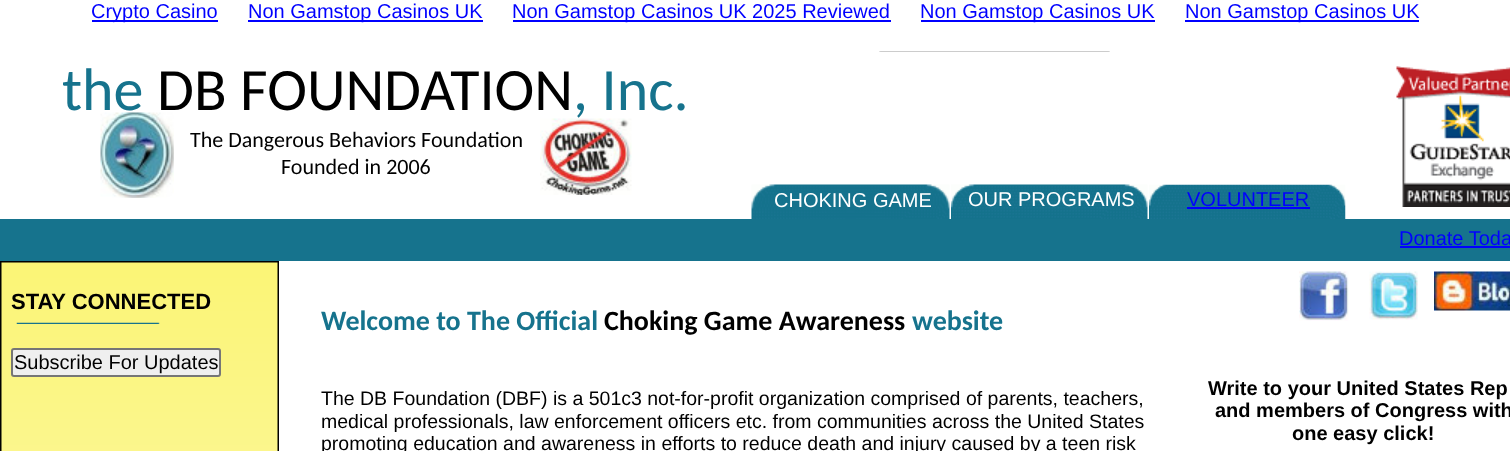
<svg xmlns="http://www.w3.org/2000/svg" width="1510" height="451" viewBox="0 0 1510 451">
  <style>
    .t1 { font: 20px Liberation Sans; fill: #00f; }
    .t2 { font: 60px Carlito; fill: #16738d; }
    .t3 { font: 60px Carlito; fill: #000; }
    .t4 { font: 22px Carlito; fill: #000; }
    .t5 { font: 20px Liberation Sans; fill: #fff; }
    .t6 { font: bold 22px Liberation Sans; fill: #000; }
    .t7 { font: bold 28px Carlito; fill: #16738d; }
    .t8 { font: bold 28px Carlito; fill: #000; }
    .t9 { font: 20px Liberation Sans; fill: #000; }
    .t10 { font: 19.5px Liberation Sans; fill: #000; }
    .t11 { font: bold 20px Liberation Sans; fill: #000; }
  </style>
  <rect width="100%" height="100%" fill="#fff"/>
  <rect x="92" y="20" width="126" height="2" fill="#00f"/>
  <text x="91" y="18" class="t1">Crypto Casino</text>
  <rect x="248" y="20" width="235" height="2" fill="#00f"/>
  <text x="248" y="18" class="t1">Non Gamstop Casinos UK</text>
  <rect x="513" y="20" width="378" height="2" fill="#00f"/>
  <text x="512" y="18" class="t1">Non Gamstop Casinos UK 2025 Reviewed</text>
  <rect x="921" y="20" width="234" height="2" fill="#00f"/>
  <text x="920" y="18" class="t1">Non Gamstop Casinos UK</text>
  <rect x="1185" y="20" width="234" height="2" fill="#00f"/>
  <text x="1185" y="18" class="t1">Non Gamstop Casinos UK</text>
  <image x="879" y="51" width="231" height="1" href="images/1.png"/>
  <text x="62" y="110" class="t2">the</text>
  <text x="157" y="110" class="t3">DB FOUNDATION</text>
  <text x="573" y="110" class="t2">, Inc.</text>
  <image x="1396" y="66" width="114" height="141" href="images/2.png"/>
  <image x="100" y="112" width="74" height="86" href="images/3.png"/>
  <text x="190" y="147" class="t4">The Dangerous Behaviors Foundation</text>
  <text x="281" y="174" class="t4">Founded in 2006</text>
  <image x="540" y="118" width="92" height="77" href="images/4.png"/>
  <image x="751" y="184" width="199" height="35" href="images/5.png"/>
  <image x="951" y="184" width="197" height="35" href="images/6.png"/>
  <image x="1149" y="184" width="197" height="35" href="images/7.png"/>
  <text x="774" y="207" class="t5">CHOKING GAME</text>
  <text x="968" y="206" class="t5">OUR PROGRAMS</text>
  <text x="1187" y="206" class="t1">VOLUNTEER</text>
  <rect x="1187" y="207" width="123" height="2" fill="#00f"/>
  <rect x="0" y="219" width="1510" height="42" fill="#16738d"/>
  <text x="1399" y="245" class="t1">Donate Toda</text>
  <rect x="1400" y="246" width="110" height="2" fill="#00f"/>
  <image x="0" y="261" width="279" height="190" href="images/8.png"/>
  <image x="1299" y="271" width="50" height="50" href="images/9.png"/>
  <image x="1369" y="271" width="49" height="49" href="images/10.png"/>
  <image x="1434" y="271" width="76" height="40" href="images/11.png"/>
  <text x="11" y="309" class="t6">STAY CONNECTED</text>
  <image x="16" y="322" width="144" height="2" href="images/12.png"/>
  <text x="321" y="330" class="t7">Welcome to The Official</text>
  <text x="604" y="330" class="t8">Choking Game Awareness</text>
  <text x="912" y="330" class="t7">website</text>
  <rect x="12" y="349" width="208" height="27" rx="2" fill="#efefef" stroke="#767676" stroke-width="2"/>
  <text x="14" y="369" class="t9">Subscribe For Updates</text>
  <text x="321" y="405" class="t10">The DB Foundation (DBF) is a 501c3 not-for-profit organization comprised of parents, teachers,</text>
  <text x="321" y="428" class="t10">medical professionals, law enforcement officers etc. from communities across the United States</text>
  <text x="321" y="450" class="t10">promoting education and awareness in efforts to reduce death and injury caused by a teen risk</text>
  <text x="1208" y="395" class="t11">Write to your United States Rep</text>
  <text x="1215" y="417" class="t11">and members of Congress with</text>
  <text x="1292" y="440" class="t11">one easy click!</text>
</svg>
